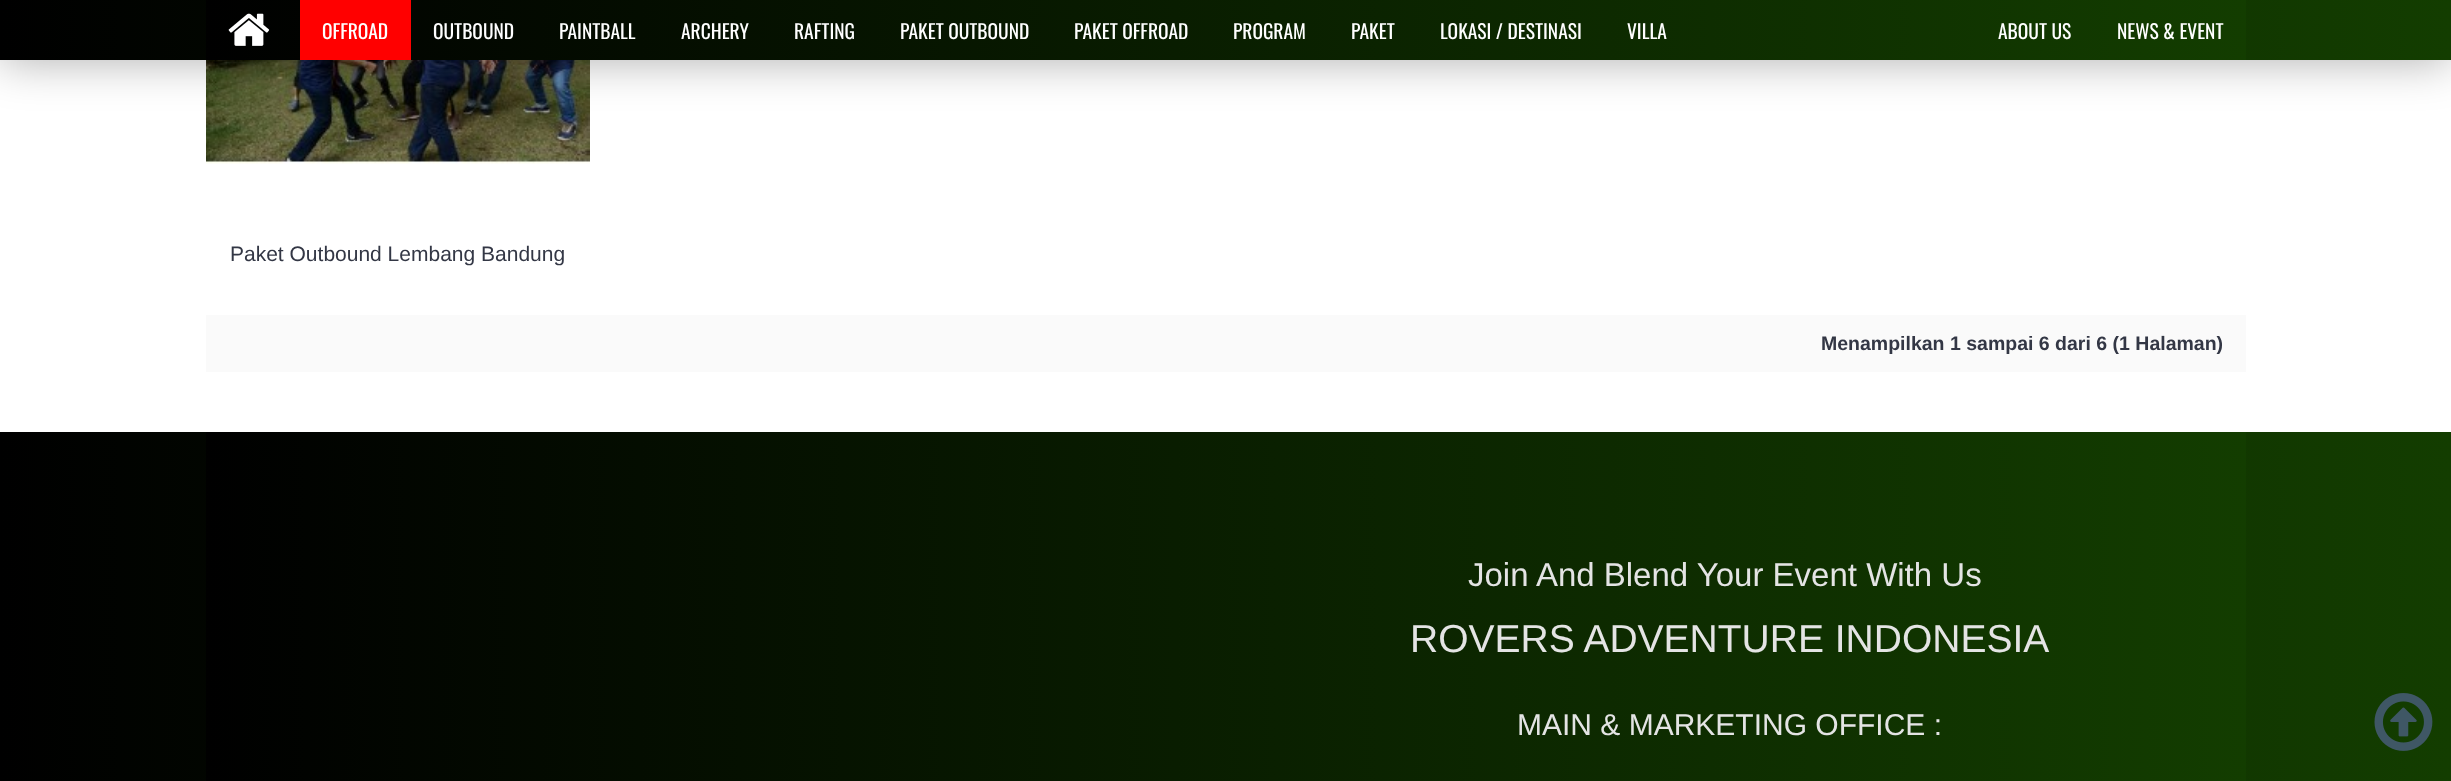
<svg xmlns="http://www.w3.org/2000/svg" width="2451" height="781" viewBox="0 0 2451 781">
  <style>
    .t1 { font: 19.5px Oswald; fill: #fff; }
    .t2 { font: 21px Liberation Sans; fill: #333745; }
    .t3 { font: bold 19.5px Liberation Sans; fill: #333745; }
    .t4 { font: 33px Liberation Sans; fill: #e4e4e4; }
    .t5 { font: 39px Liberation Sans; fill: #e4e4e4; }
    .t6 { font: 30px Liberation Sans; fill: #e4e4e4; }
  </style>
  <defs>
    <linearGradient id="g1" gradientUnits="userSpaceOnUse" x1="2451" y1="30" x2="0" y2="30"><stop offset="0" stop-color="#133d00"/><stop offset="1" stop-color="#000"/></linearGradient>
    <linearGradient id="g2" gradientUnits="userSpaceOnUse" x1="2246" y1="30" x2="206" y2="30"><stop offset="0" stop-color="#133d00"/><stop offset="1" stop-color="#000"/></linearGradient>
    <linearGradient id="g3" gradientUnits="userSpaceOnUse" x1="2451" y1="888" x2="0" y2="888"><stop offset="0" stop-color="#133d00"/><stop offset="1" stop-color="#000"/></linearGradient>
    <linearGradient id="g4" gradientUnits="userSpaceOnUse" x1="2246" y1="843" x2="206" y2="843"><stop offset="0" stop-color="#133d00"/><stop offset="1" stop-color="#000"/></linearGradient>
  </defs>
  <rect width="100%" height="100%" fill="#fff"/>
  <image x="206" y="60" width="384" height="104" href="images/2.png"/>
  <rect x="0" y="2" width="2451" height="60" fill="#0000004d" filter="blur(22.5px)"/>
  <rect x="0" y="0" width="2451" height="60" fill="url(#g1)"/>
  <rect x="206" y="0" width="2040" height="60" fill="url(#g2)"/>
  <image x="228" y="13" width="42" height="33" href="images/1.png"/>
  <rect x="300" y="0" width="111" height="60" fill="#f00"/>
  <text x="322" y="39" class="t1">OFFROAD</text>
  <text x="433" y="39" class="t1">OUTBOUND</text>
  <text x="559" y="39" class="t1">PAINTBALL</text>
  <text x="681" y="39" class="t1">ARCHERY</text>
  <text x="794" y="39" class="t1">RAFTING</text>
  <text x="900" y="39" class="t1">PAKET OUTBOUND</text>
  <text x="1074" y="39" class="t1">PAKET OFFROAD</text>
  <text x="1233" y="39" class="t1">PROGRAM</text>
  <text x="1351" y="39" class="t1">PAKET</text>
  <text x="1440" y="39" class="t1">LOKASI / DESTINASI</text>
  <text x="1627" y="39" class="t1">VILLA</text>
  <text x="1998" y="39" class="t1">ABOUT US</text>
  <text x="2117" y="39" class="t1">NEWS &amp; EVENT</text>
  <text x="230" y="261" class="t2">Paket Outbound Lembang Bandung</text>
  <rect x="206" y="315" width="2040" height="57" fill="#fafafa"/>
  <text x="1821" y="350" class="t3">Menampilkan 1 sampai 6 dari 6 (1 Halaman)</text>
  <rect x="0" y="432" width="2451" height="349" fill="url(#g3)"/>
  <rect x="206" y="432" width="2040" height="349" fill="url(#g4)"/>
  <text x="1468" y="586" class="t4">Join And Blend Your Event With Us</text>
  <text x="1410" y="652" class="t5">ROVERS ADVENTURE INDONESIA</text>
  <text x="1517" y="735" class="t6">MAIN &amp; MARKETING OFFICE :</text>
  <image x="2374" y="693" width="59" height="58" href="images/3.png"/>
</svg>
